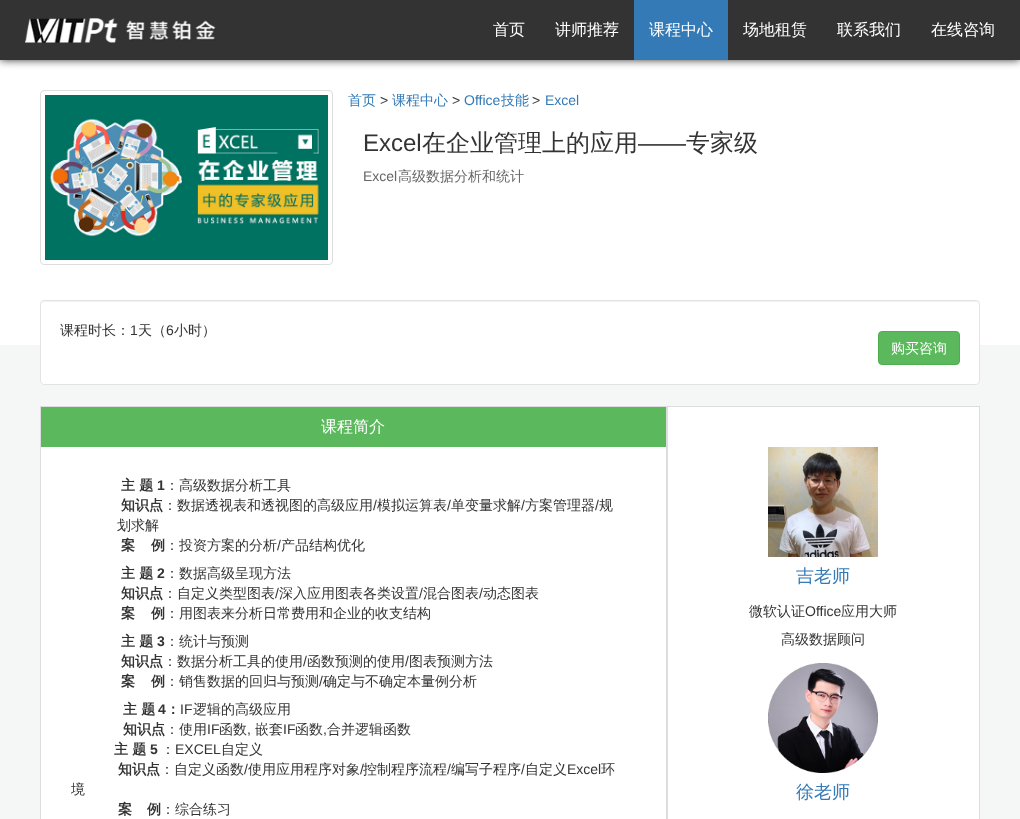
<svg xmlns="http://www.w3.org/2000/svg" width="1020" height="819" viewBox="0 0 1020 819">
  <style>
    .t1 { font: 500 16px WenQuanYi Zen Hei; fill: #fff; }
    .t2 { font: 500 14px WenQuanYi Zen Hei; fill: #337ab7; }
    .t3 { font: 14px Liberation Sans; fill: #333; }
    .t4 { font: 14px Liberation Sans; fill: #337ab7; }
    .t5 { font: 24px Liberation Sans; fill: #333; }
    .t6 { font: 500 24px WenQuanYi Zen Hei; fill: #333; }
    .t7 { font: 14px Liberation Sans; fill: #666; }
    .t8 { font: 500 14px WenQuanYi Zen Hei; fill: #666; }
    .t9 { font: 500 14px WenQuanYi Zen Hei; fill: #333; }
    .t10 { font: 500 14px WenQuanYi Zen Hei; fill: #fff; }
    .t11 { font: bold 14px WenQuanYi Zen Hei; fill: #333; }
    .t12 { font: bold 14px Liberation Sans; fill: #333; }
    .t13 { font: 500 18px WenQuanYi Zen Hei; fill: #337ab7; }
  </style>
  <rect width="100%" height="100%" fill="#fff"/>
  <rect x="0" y="0" width="1020" height="60" fill="#333" filter="blur(4px)"/>
  <rect x="0" y="0" width="1020" height="60" fill="#333"/>
  <image x="25" y="18" width="191" height="25" href="images/1.png"/>
  <text x="493" y="35" class="t1">首页</text>
  <text x="555" y="35" class="t1">讲师推荐</text>
  <rect x="634" y="0" width="94" height="60" fill="#337ab7"/>
  <text x="649" y="35" class="t1">课程中心</text>
  <text x="743" y="35" class="t1">场地租赁</text>
  <text x="837" y="35" class="t1">联系我们</text>
  <text x="931" y="35" class="t1">在线咨询</text>
  <rect x="40.5" y="90.5" width="292" height="174" rx="3.5" fill="none" stroke="#ddd"/>
  <image x="45" y="95" width="283" height="165" href="images/2.png"/>
  <text x="348" y="105" class="t2">首页</text>
  <text x="380" y="105" class="t3">&gt;</text>
  <text x="392" y="105" class="t2">课程中心</text>
  <text x="452" y="105" class="t3">&gt;</text>
  <text x="464" y="105" class="t4">Office</text>
  <text x="501" y="105" class="t2">技能</text>
  <text x="532" y="105" class="t3">&gt;</text>
  <text x="545" y="105" class="t4">Excel</text>
  <text x="363" y="151" class="t5">Excel</text>
  <text x="422" y="151" class="t6">在企业管理上的应用</text>
  <text x="638" y="151" class="t5">——</text>
  <text x="686" y="151" class="t6">专家级</text>
  <text x="363" y="181" class="t7">Excel</text>
  <text x="398" y="181" class="t8">高级数据分析和统计</text>
  <rect x="0" y="345" width="1020" height="474" fill="#f5f7f7"/>
  <rect x="40" y="300" width="940" height="85" rx="4" fill="#fff"/>
  <path d="M44 302H976C978 302 979 303 979 305C979 303 978 301 976 301H44C42 301 41 303 41 305C41 303 42 302 44 302Z" fill="#f2f2f2"/>
  <rect x="40.5" y="300.5" width="939" height="84" rx="3.5" fill="none" stroke="#e3e3e3"/>
  <text x="60" y="335" class="t9">课程时长：</text>
  <text x="130" y="335" class="t3">1</text>
  <text x="138" y="335" class="t9">天（</text>
  <text x="166" y="335" class="t3">6</text>
  <text x="174" y="335" class="t9">小时）</text>
  <rect x="878.5" y="331.5" width="81" height="33" rx="3.5" fill="#5cb85c" stroke="#4cae4c"/>
  <text x="891" y="353" class="t10">购买咨询</text>
  <rect x="41" y="447" width="625" height="372" fill="#fff"/>
  <rect x="40.5" y="406.5" width="626" height="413" fill="none" stroke="#ddd"/>
  <rect x="41" y="407" width="625" height="40" fill="#5cb85c"/>
  <text x="321" y="432" class="t1">课程简介</text>
  <text x="121" y="490" class="t11">主 题</text>
  <text x="157" y="490" class="t12">1</text>
  <text x="165" y="490" class="t9">：高级数据分析工具</text>
  <text x="121" y="510" class="t11">知识点</text>
  <text x="163" y="510" class="t9">：数据透视表和透视图的高级应用</text>
  <text x="373" y="510" class="t3">/</text>
  <text x="377" y="510" class="t9">模拟运算表</text>
  <text x="447" y="510" class="t3">/</text>
  <text x="451" y="510" class="t9">单变量求解</text>
  <text x="521" y="510" class="t3">/</text>
  <text x="525" y="510" class="t9">方案管理器</text>
  <text x="595" y="510" class="t3">/</text>
  <text x="599" y="510" class="t9">规</text>
  <text x="117" y="530" class="t9">划求解</text>
  <text x="121" y="550" class="t11">案</text>
  <text x="151" y="550" class="t11">例</text>
  <text x="165" y="550" class="t9">：投资方案的分析</text>
  <text x="277" y="550" class="t3">/</text>
  <text x="281" y="550" class="t9">产品结构优化</text>
  <text x="121" y="578" class="t11">主 题</text>
  <text x="157" y="578" class="t12">2</text>
  <text x="165" y="578" class="t9">：数据高级呈现方法</text>
  <text x="121" y="598" class="t11">知识点</text>
  <text x="163" y="598" class="t9">：自定义类型图表</text>
  <text x="275" y="598" class="t3">/</text>
  <text x="279" y="598" class="t9">深入应用图表各类设置</text>
  <text x="419" y="598" class="t3">/</text>
  <text x="423" y="598" class="t9">混合图表</text>
  <text x="479" y="598" class="t3">/</text>
  <text x="483" y="598" class="t9">动态图表</text>
  <text x="121" y="618" class="t11">案</text>
  <text x="151" y="618" class="t11">例</text>
  <text x="165" y="618" class="t9">：用图表来分析日常费用和企业的收支结构</text>
  <text x="121" y="646" class="t11">主 题</text>
  <text x="157" y="646" class="t12">3</text>
  <text x="165" y="646" class="t9">：统计与预测</text>
  <text x="121" y="666" class="t11">知识点</text>
  <text x="163" y="666" class="t9">：数据分析工具的使用</text>
  <text x="303" y="666" class="t3">/</text>
  <text x="307" y="666" class="t9">函数预测的使用</text>
  <text x="405" y="666" class="t3">/</text>
  <text x="409" y="666" class="t9">图表预测方法</text>
  <text x="121" y="686" class="t11">案</text>
  <text x="151" y="686" class="t11">例</text>
  <text x="165" y="686" class="t9">：销售数据的回归与预测</text>
  <text x="319" y="686" class="t3">/</text>
  <text x="323" y="686" class="t9">确定与不确定本量例分析</text>
  <text x="123" y="714" class="t11">主 题</text>
  <text x="158" y="714" class="t12">4</text>
  <text x="166" y="714" class="t11">：</text>
  <text x="180" y="714" class="t3">IF</text>
  <text x="193" y="714" class="t9">逻辑的高级应用</text>
  <text x="123" y="734" class="t11">知识点</text>
  <text x="165" y="734" class="t9">：使用</text>
  <text x="207" y="734" class="t3">IF</text>
  <text x="219" y="734" class="t9">函数</text>
  <text x="247" y="734" class="t3">,</text>
  <text x="255" y="734" class="t9">嵌套</text>
  <text x="283" y="734" class="t3">IF</text>
  <text x="295" y="734" class="t9">函数</text>
  <text x="323" y="734" class="t3">,</text>
  <text x="327" y="734" class="t9">合并逻辑函数</text>
  <text x="114" y="754" class="t11">主 题</text>
  <text x="150" y="754" class="t12">5</text>
  <text x="161" y="754" class="t9">：</text>
  <text x="175" y="754" class="t3">EXCEL</text>
  <text x="221" y="754" class="t9">自定义</text>
  <text x="118" y="774" class="t11">知识点</text>
  <text x="160" y="774" class="t9">：自定义函数</text>
  <text x="244" y="774" class="t3">/</text>
  <text x="248" y="774" class="t9">使用应用程序对象</text>
  <text x="360" y="774" class="t3">/</text>
  <text x="363" y="774" class="t9">控制程序流程</text>
  <text x="447" y="774" class="t3">/</text>
  <text x="451" y="774" class="t9">编写子程序</text>
  <text x="521" y="774" class="t3">/</text>
  <text x="525" y="774" class="t9">自定义</text>
  <text x="567" y="774" class="t3">Excel</text>
  <text x="601" y="774" class="t9">环</text>
  <text x="71" y="794" class="t9">境</text>
  <text x="118" y="814" class="t11">案</text>
  <text x="147" y="814" class="t11">例</text>
  <text x="161" y="814" class="t9">：综合练习</text>
  <rect x="667.5" y="406.5" width="312" height="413" fill="#fff" stroke="#ddd"/>
  <image x="768" y="447" width="110" height="110" href="images/3.png"/>
  <text x="796" y="582" class="t13">吉老师</text>
  <text x="749" y="616" class="t9">微软认证</text>
  <text x="805" y="616" class="t3">Office</text>
  <text x="841" y="616" class="t9">应用大师</text>
  <text x="781" y="644" class="t9">高级数据顾问</text>
  <image x="768" y="663" width="110" height="110" href="images/4.png"/>
  <text x="796" y="798" class="t13">徐老师</text>
</svg>
